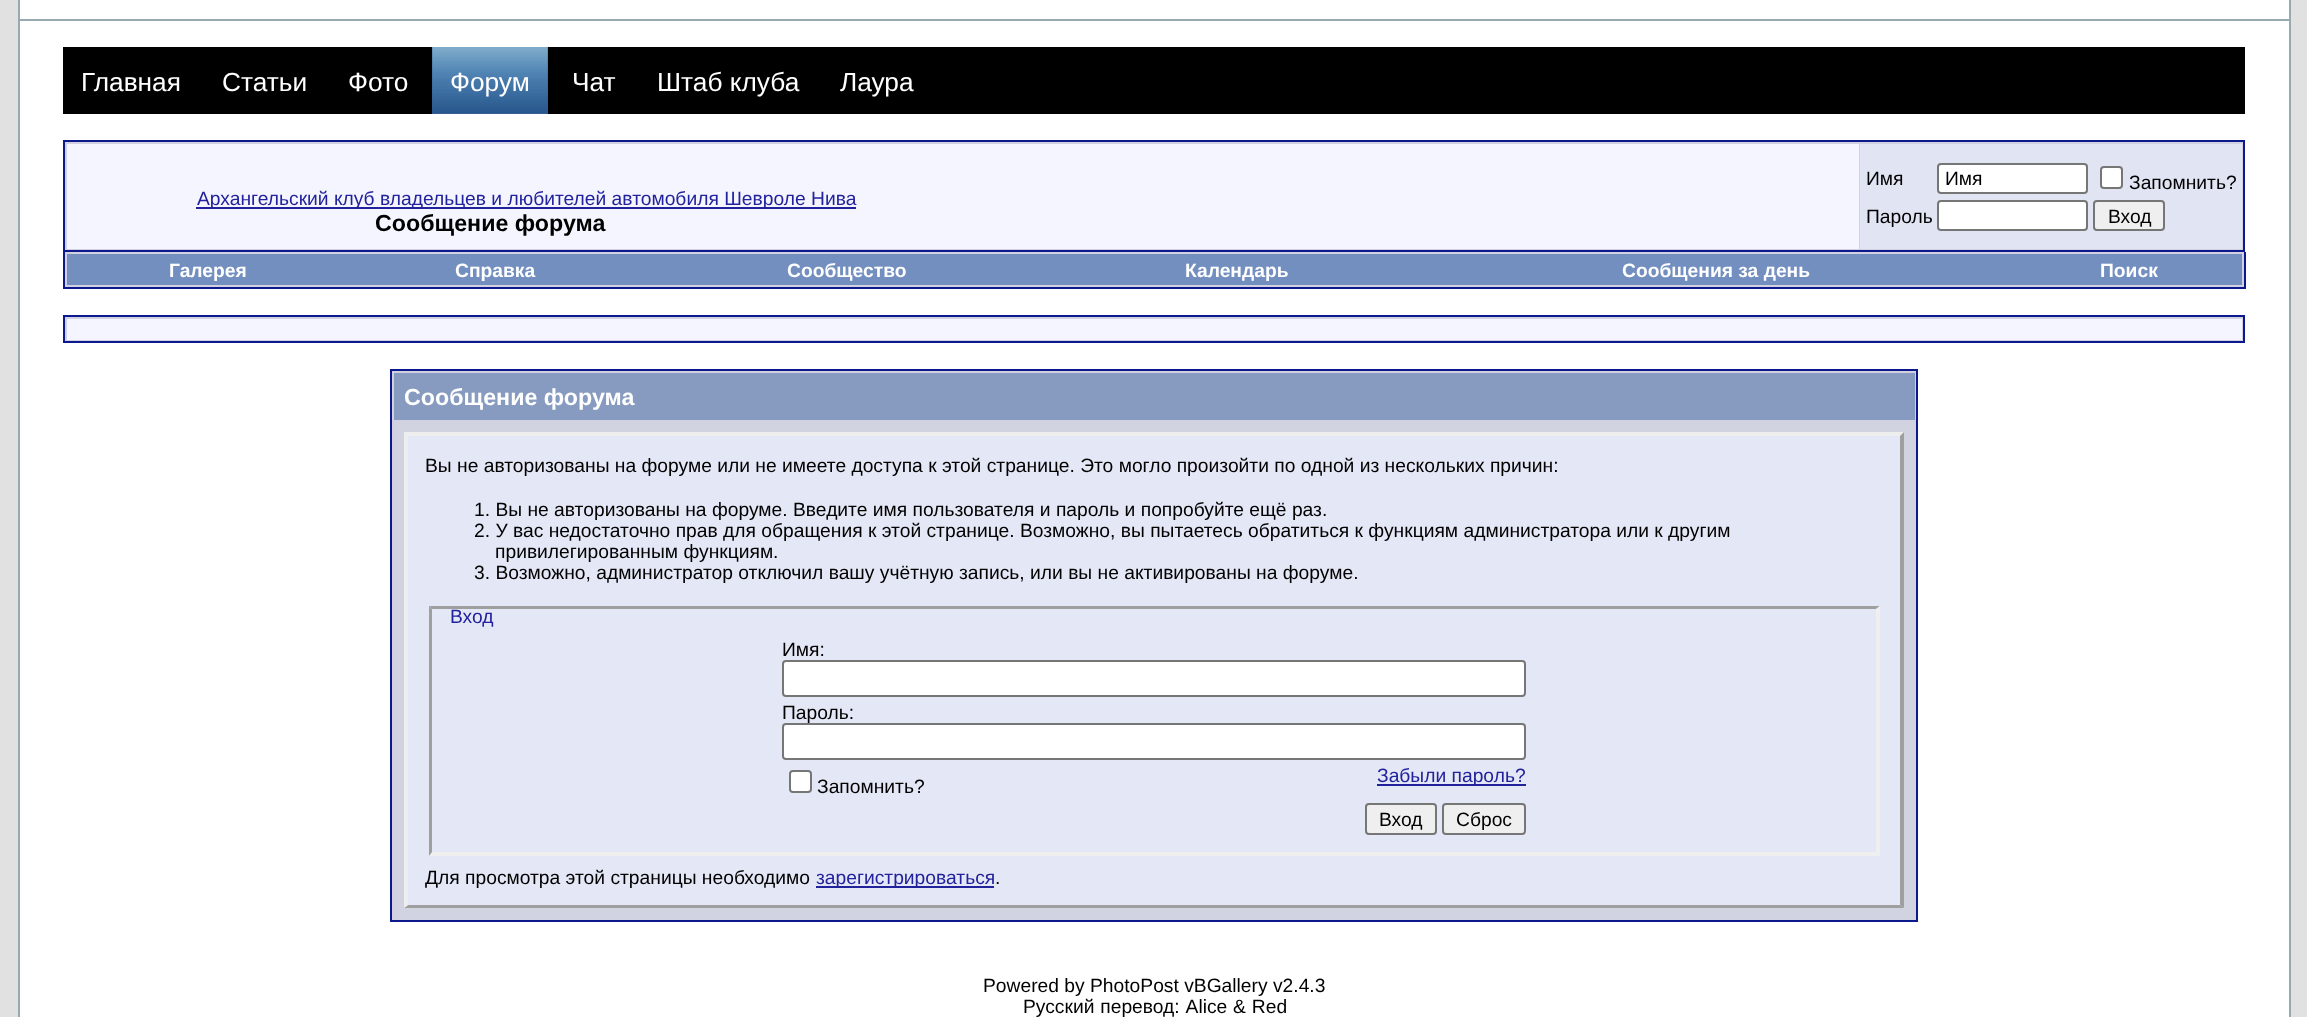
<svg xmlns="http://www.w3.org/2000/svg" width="2307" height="1017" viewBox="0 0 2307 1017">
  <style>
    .t1 { font: 26.25px Liberation Sans; fill: #fff; }
    .t2 { font: 19.25px Liberation Sans; fill: #22229c; }
    .t3 { font: bold 23.25px Liberation Sans; fill: #000; }
    .t4 { font: 19.25px Liberation Sans; fill: #000; }
    .t5 { font: bold 19.25px Liberation Sans; fill: #fff; }
    .t6 { font: bold 23.25px Liberation Sans; fill: #fff; }
  </style>
  <rect width="100%" height="100%" fill="#e1e1e2"/>
  <rect x="19" y="-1" width="2271" height="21" fill="#fff" stroke="#98aab1" stroke-width="2"/>
  <rect x="20" y="21" width="2269" height="996" fill="#fff"/>
  <rect x="2289" y="21" width="2" height="996" fill="#98aab1"/>
  <rect x="18" y="21" width="2" height="996" fill="#98aab1"/>
  <rect x="63" y="47" width="2182" height="67" fill="#000"/>
  <text x="81" y="91" class="t1">Главная</text>
  <text x="222" y="91" class="t1">Статьи</text>
  <text x="348" y="91" class="t1">Фото</text>
  <rect x="432" y="47" width="116" height="67" fill="#375e93"/>
  <image x="432" y="47" width="116" height="66" href="images/1.png"/>
  <text x="450" y="91" class="t1">Форум</text>
  <text x="572" y="91" class="t1">Чат</text>
  <text x="657" y="91" class="t1">Штаб клуба</text>
  <text x="840" y="91" class="t1">Лаура</text>
  <rect x="64" y="141" width="2180" height="110" fill="#d1d1e1" stroke="#0b198c" stroke-width="2"/>
  <rect x="67" y="144" width="1792" height="105" fill="#f5f5ff"/>
  <rect x="196" y="207" width="660" height="2" fill="#22229c"/>
  <text x="197" y="205" class="t2">Архангельский клуб владельцев и любителей автомобиля Шевроле Нива</text>
  <text x="375" y="231" class="t3">Сообщение форума</text>
  <rect x="1860" y="144" width="382" height="105" fill="#e1e4f2"/>
  <text x="1866" y="185" class="t4">Имя</text>
  <rect x="1938" y="164" width="149" height="29" rx="3" fill="#fff" stroke="#767676" stroke-width="2"/>
  <text x="1945" y="185" class="t4">Имя</text>
  <rect x="2101" y="167" width="21" height="21" rx="3" fill="#fff" stroke="#767676" stroke-width="2"/>
  <text x="2129" y="189" class="t4">Запомнить?</text>
  <text x="1866" y="223" class="t4">Пароль</text>
  <rect x="1938" y="201" width="149" height="29" rx="3" fill="#fff" stroke="#767676" stroke-width="2"/>
  <rect x="2094" y="201" width="70" height="29" rx="3" fill="#efefef" stroke="#767676" stroke-width="2"/>
  <text x="2108" y="223" class="t4">Вход</text>
  <rect x="65" y="252" width="2179" height="35" fill="#d1d1e1"/>
  <rect x="2244" y="252" width="2" height="37" fill="#0b198c"/>
  <rect x="63" y="287" width="2182" height="2" fill="#0b198c"/>
  <rect x="63" y="252" width="2" height="37" fill="#0b198c"/>
  <rect x="67" y="254" width="2175" height="31" fill="#738fbf"/>
  <text x="169" y="277" class="t5">Галерея</text>
  <text x="455" y="277" class="t5">Справка</text>
  <text x="787" y="277" class="t5">Сообщество</text>
  <text x="1185" y="277" class="t5">Календарь</text>
  <text x="1622" y="277" class="t5">Сообщения за день</text>
  <text x="2100" y="277" class="t5">Поиск</text>
  <rect x="64" y="316" width="2180" height="26" fill="#d1d1e1" stroke="#0b198c" stroke-width="2"/>
  <rect x="67" y="319" width="2175" height="21" fill="#f5f5ff"/>
  <rect x="391" y="370" width="1526" height="551" fill="#d1d1e1" stroke="#0b198c" stroke-width="2"/>
  <rect x="394" y="373" width="1521" height="47" fill="#869bbf"/>
  <text x="404" y="405" class="t6">Сообщение форума</text>
  <rect x="394" y="422" width="1521" height="497" fill="#d1d4e0"/>
  <rect x="404" y="432" width="1500" height="476" fill="#e4e7f5"/>
  <path d="M404 432H1904L1900 436H408Z" fill="#eee"/>
  <path d="M1904 432V908L1900 905V436Z" fill="#9f9f9f"/>
  <path d="M1904 908H404L408 905H1900Z" fill="#9f9f9f"/>
  <path d="M404 908V432L408 436V905Z" fill="#eee"/>
  <text x="425" y="472" class="t4">Вы не авторизованы на форуме или не имеете доступа к этой странице. Это могло произойти по одной из нескольких причин:</text>
  <text x="474" y="516" class="t4">1. Вы не авторизованы на форуме. Введите имя пользователя и пароль и попробуйте ещё раз.</text>
  <text x="474" y="537" class="t4">2. У вас недостаточно прав для обращения к этой странице. Возможно, вы пытаетесь обратиться к функциям администратора или к другим</text>
  <text x="495" y="558" class="t4">привилегированным функциям.</text>
  <text x="474" y="579" class="t4">3. Возможно, администратор отключил вашу учётную запись, или вы не активированы на форуме.</text>
  <path d="M429 606H1880L1876 609H432Z" fill="#9f9f9f"/>
  <path d="M1880 606V856L1876 852V609Z" fill="#efefef"/>
  <path d="M1880 856H429L432 852H1876Z" fill="#efefef"/>
  <path d="M429 856V606L432 609V852Z" fill="#9f9f9f"/>
  <text x="450" y="623" class="t2">Вход</text>
  <text x="782" y="656" class="t4">Имя:</text>
  <rect x="783" y="661" width="742" height="35" rx="3" fill="#fff" stroke="#767676" stroke-width="2"/>
  <text x="782" y="719" class="t4">Пароль:</text>
  <rect x="783" y="724" width="742" height="35" rx="3" fill="#fff" stroke="#767676" stroke-width="2"/>
  <rect x="790" y="771" width="21" height="21" rx="3" fill="#fff" stroke="#767676" stroke-width="2"/>
  <text x="817" y="793" class="t4">Запомнить?</text>
  <rect x="1377" y="784" width="149" height="2" fill="#22229c"/>
  <text x="1377" y="782" class="t2">Забыли пароль?</text>
  <rect x="1366" y="804" width="70" height="30" rx="3" fill="#efefef" stroke="#767676" stroke-width="2"/>
  <text x="1379" y="826" class="t4">Вход</text>
  <rect x="1443" y="804" width="82" height="30" rx="3" fill="#efefef" stroke="#767676" stroke-width="2"/>
  <text x="1456" y="826" class="t4">Сброс</text>
  <text x="425" y="884" class="t4">Для просмотра этой страницы необходимо</text>
  <rect x="816" y="886" width="178" height="2" fill="#22229c"/>
  <text x="816" y="884" class="t2">зарегистрироваться</text>
  <text x="995" y="884" class="t4">.</text>
  <text x="983" y="992" class="t4">Powered by PhotoPost vBGallery v2.4.3</text>
  <text x="1023" y="1013" word-spacing="0.5" class="t4">Русский перевод: Alice &amp; Red</text>
</svg>
